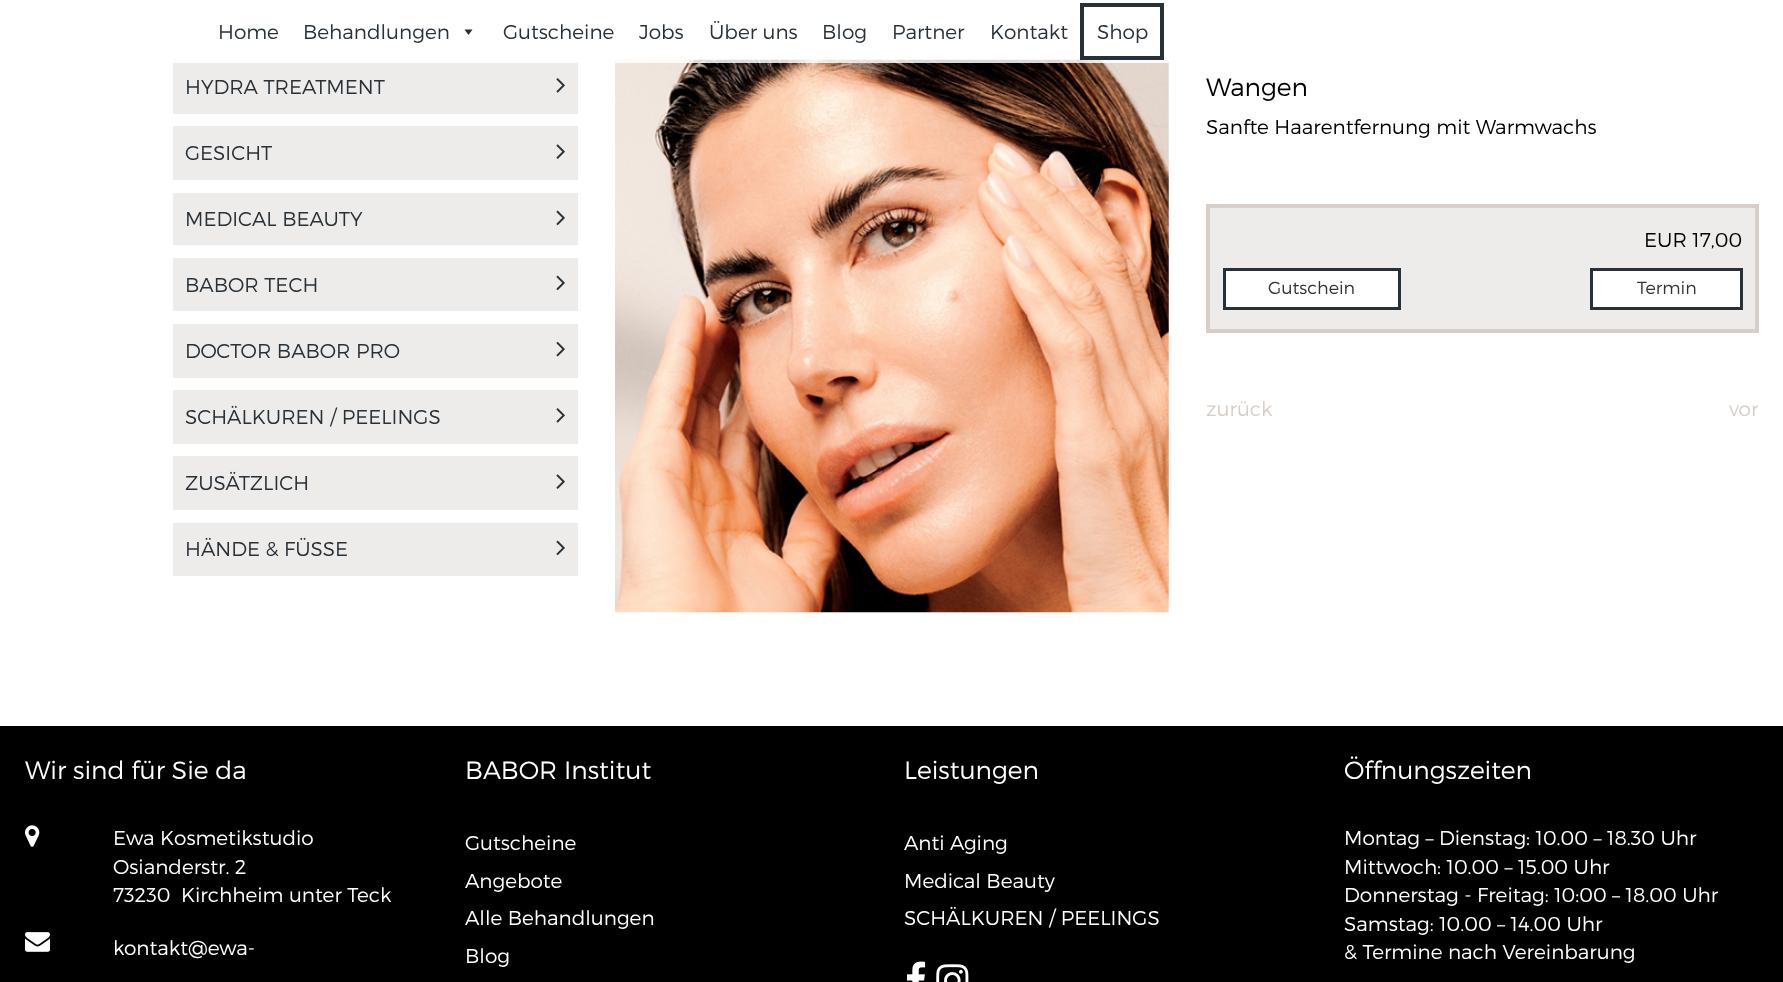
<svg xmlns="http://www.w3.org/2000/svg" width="1783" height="982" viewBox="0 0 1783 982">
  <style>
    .t1 { font: 300 20px Montserrat; fill: #293138; }
    .t2 { font: 300 25px Montserrat; fill: #000; }
    .t3 { font: 300 20px Montserrat; fill: #000; }
    .t4 { font: 300 17.5px Montserrat; fill: #333; }
    .t5 { font: 300 20px Montserrat; fill: #d7cec8; }
    .t6 { font: 300 25px Montserrat; fill: #fff; }
    .t7 { font: 300 20px Montserrat; fill: #fff; }
  </style>
  <rect width="100%" height="100%" fill="#fff"/>
  <rect x="173" y="60" width="405" height="54" fill="#eeecea"/>
  <image x="615" y="59" width="554" height="554" href="images/5.png"/>
  <rect x="173" y="59" width="996" height="4" fill="#ffffffd9"/>
  <text x="218" y="39" class="t1">Home</text>
  <text x="303" y="39" class="t1">Behandlungen</text>
  <path d="M472.5 29.5L468.5 35L464.5 29.5Z" fill="#293138"/>
  <text x="503" y="39" class="t1">Gutscheine</text>
  <text x="639" y="39" class="t1">Jobs</text>
  <text x="709" y="39" class="t1">Über uns</text>
  <text x="822" y="39" class="t1">Blog</text>
  <text x="892" y="39" class="t1">Partner</text>
  <text x="990" y="39" class="t1">Kontakt</text>
  <rect x="1082" y="5" width="80" height="53" fill="none" stroke="#293138" stroke-width="4"/>
  <text x="1097" y="39" class="t1">Shop</text>
  <text x="185" y="94" class="t1">HYDRA TREATMENT</text>
  <image x="556" y="78" width="9" height="15" href="images/1.png"/>
  <rect x="173" y="126" width="405" height="54" fill="#eeecea"/>
  <text x="185" y="160" class="t1">GESICHT</text>
  <image x="556" y="144" width="9" height="15" href="images/2.png"/>
  <rect x="173" y="193" width="405" height="52" fill="#eeecea"/>
  <text x="185" y="226" class="t1">MEDICAL BEAUTY</text>
  <image x="556" y="210" width="9" height="16" href="images/3.png"/>
  <rect x="173" y="258" width="405" height="53" fill="#eeecea"/>
  <text x="185" y="292" class="t1">BABOR TECH</text>
  <image x="556" y="275" width="9" height="16" href="images/3.png"/>
  <rect x="173" y="324" width="405" height="54" fill="#eeecea"/>
  <text x="185" y="358" class="t1">DOCTOR BABOR PRO</text>
  <image x="556" y="342" width="9" height="15" href="images/4.png"/>
  <rect x="173" y="390" width="405" height="54" fill="#eeecea"/>
  <text x="185" y="424" class="t1">SCHÄLKUREN / PEELINGS</text>
  <image x="556" y="408" width="9" height="15" href="images/1.png"/>
  <rect x="173" y="456" width="405" height="54" fill="#eeecea"/>
  <text x="185" y="490" class="t1">ZUSÄTZLICH</text>
  <image x="556" y="474" width="9" height="15" href="images/2.png"/>
  <rect x="173" y="523" width="405" height="53" fill="#eeecea"/>
  <text x="185" y="556" class="t1">HÄNDE &amp; FÜSSE</text>
  <image x="556" y="540" width="9" height="16" href="images/3.png"/>
  <text x="1206" y="96" class="t2">Wangen</text>
  <text x="1206" y="134" class="t3">Sanfte Haarentfernung mit Warmwachs</text>
  <rect x="1208" y="206" width="549" height="125" fill="#eeecea" stroke="#d7cec8" stroke-width="4"/>
  <text x="1644" y="247" class="t3">EUR 17,00</text>
  <rect x="1224.5" y="269.5" width="175" height="39" fill="#fff" stroke="#293138" stroke-width="3"/>
  <text x="1268" y="294" class="t4">Gutschein</text>
  <rect x="1591.5" y="269.5" width="150" height="39" fill="#fff" stroke="#293138" stroke-width="3"/>
  <text x="1637" y="294" class="t4">Termin</text>
  <text x="1206" y="416" class="t5">zurück</text>
  <text x="1729" y="416" class="t5">vor</text>
  <rect x="0" y="726" width="1783" height="256" fill="#000"/>
  <text x="25" y="779" class="t6">Wir sind für Sie da</text>
  <image x="25" y="825" width="15" height="22" href="images/6.png"/>
  <text x="113" y="845" class="t7">Ewa Kosmetikstudio</text>
  <text x="113" y="874" class="t7">Osianderstr. 2</text>
  <text x="113" y="902" class="t7">73230</text>
  <text x="181" y="902" class="t7">Kirchheim unter Teck</text>
  <image x="25" y="932" width="25" height="20" href="images/7.png"/>
  <text x="113" y="955" class="t7">kontakt@ewa-</text>
  <text x="465" y="779" class="t6">BABOR Institut</text>
  <text x="465" y="850" class="t7">Gutscheine</text>
  <text x="465" y="888" class="t7">Angebote</text>
  <text x="465" y="925" class="t7">Alle Behandlungen</text>
  <text x="465" y="963" class="t7">Blog</text>
  <text x="904" y="779" class="t6">Leistungen</text>
  <text x="904" y="850" class="t7">Anti Aging</text>
  <text x="904" y="888" class="t7">Medical Beauty</text>
  <text x="904" y="925" class="t7">SCHÄLKUREN / PEELINGS</text>
  <image x="907" y="961" width="19" height="21" href="images/8.png"/>
  <image x="936" y="964" width="33" height="18" href="images/9.png"/>
  <text x="1344" y="779" class="t6">Öffnungszeiten</text>
  <text x="1344" y="845" class="t7">Montag – Dienstag: 10.00 – 18.30 Uhr</text>
  <text x="1344" y="874" class="t7">Mittwoch: 10.00 – 15.00 Uhr</text>
  <text x="1344" y="902" class="t7">Donnerstag - Freitag: 10:00 – 18.00 Uhr</text>
  <text x="1344" y="931" class="t7">Samstag: 10.00 – 14.00 Uhr</text>
  <text x="1344" y="959" class="t7">&amp; Termine nach Vereinbarung</text>
</svg>
